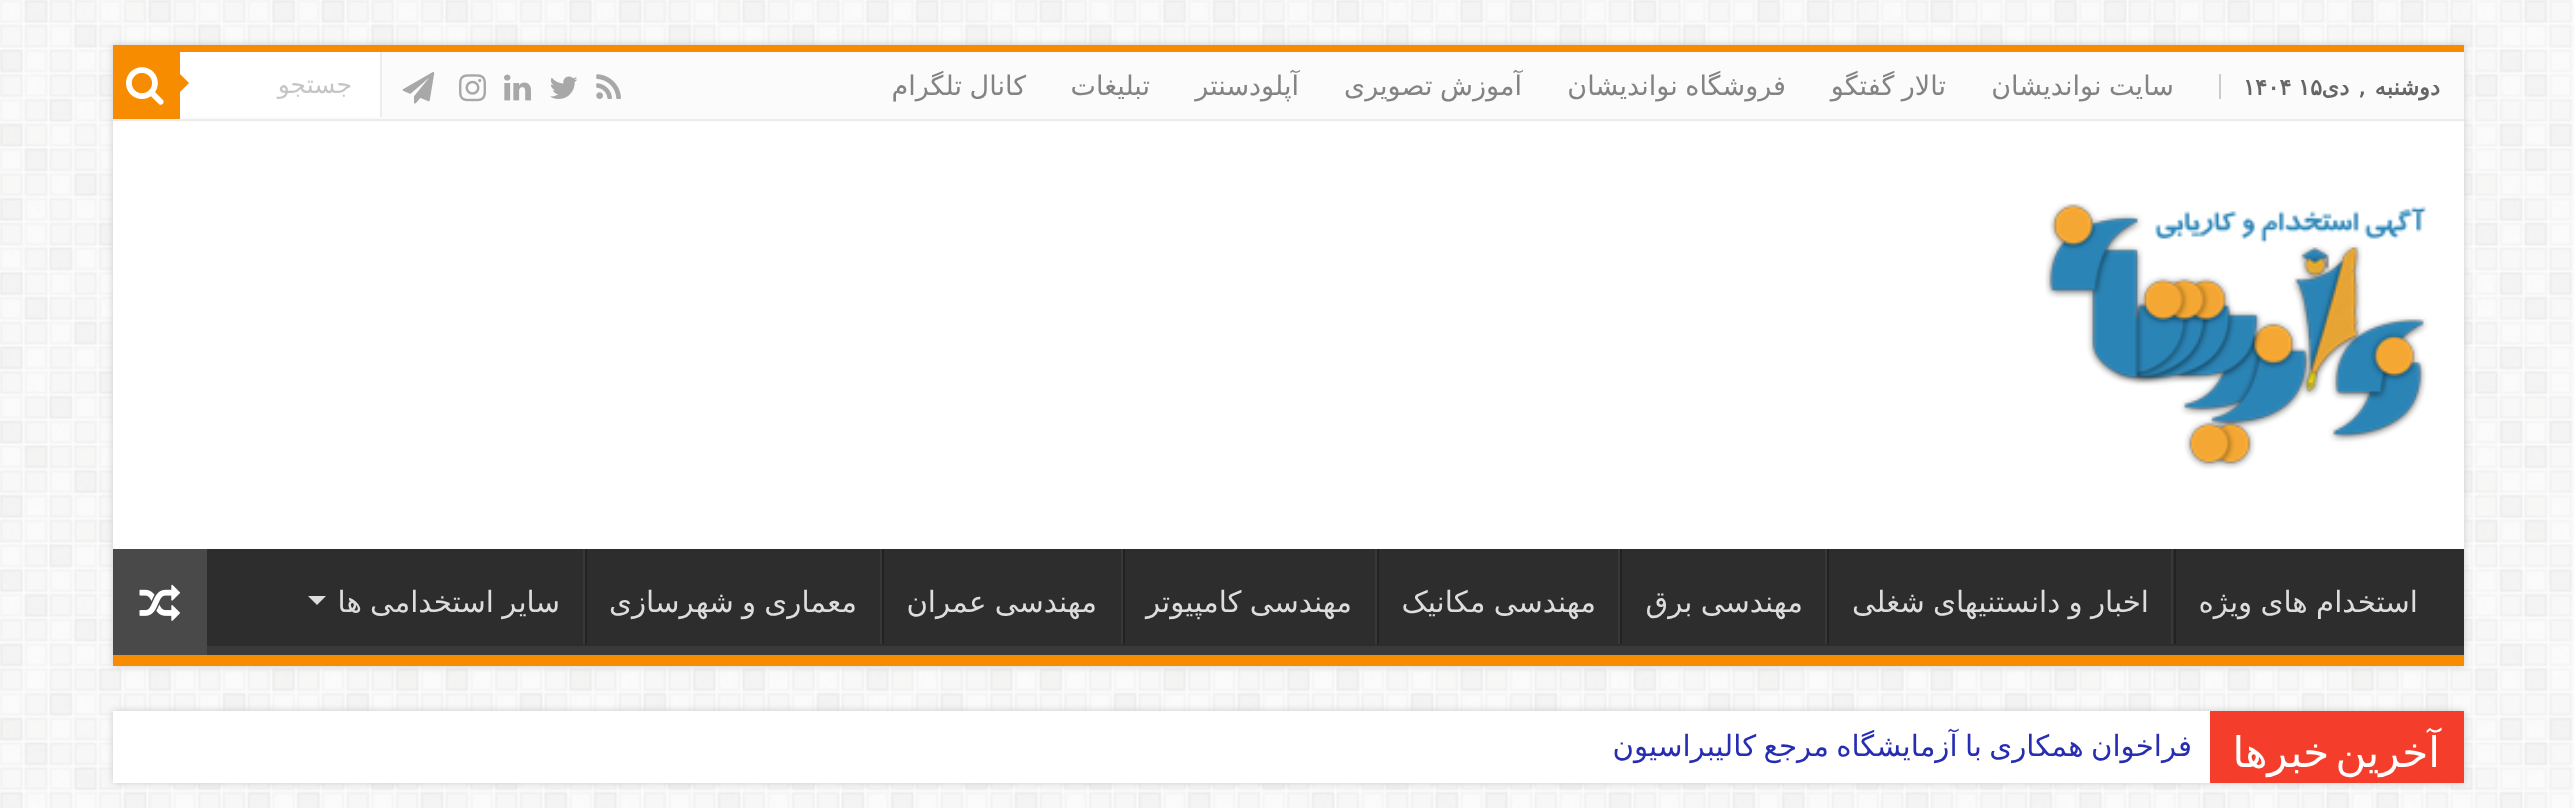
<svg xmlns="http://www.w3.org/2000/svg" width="2574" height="808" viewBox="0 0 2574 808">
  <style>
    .t1 { font: bold 22.5px DejaVu Sans; direction: rtl; fill: #666; }
    .t2 { font: bold 22.5px DejaVu Sans; fill: #666; }
    .t3 { font: 27px DejaVu Sans; direction: rtl; fill: #838383; }
    .t4 { font: 25px DejaVu Sans; direction: rtl; fill: #c5c5c5; }
    .t5 { font: 29.25px DejaVu Sans; direction: rtl; fill: #ddd; }
    .t6 { font: 42px DejaVu Sans; direction: rtl; fill: #fff; }
    .t7 { font: 29.25px DejaVu Sans; direction: rtl; fill: #262db3; }
  </style>
  <defs>
    <clipPath id="clip1"><rect x="113" y="549" width="2351" height="106"/></clipPath>
  </defs>
  <rect width="100%" height="100%" fill="#fff"/>
  <image x="0" y="0" width="2574" height="808" href="images/1.png"/>
  <rect x="113" y="45" width="2351" height="621" fill="#cacaca" filter="blur(3.5px)"/>
  <rect x="113" y="122" width="2351" height="427" fill="#fff"/>
  <rect x="113" y="45" width="2351" height="7" fill="#f88c00"/>
  <rect x="113" y="52" width="2351" height="70" fill="#fbfbfb"/>
  <rect x="113" y="119" width="2351" height="2" fill="#ececec"/>
  <rect x="2219" y="74" width="2" height="25" fill="#ccc"/>
  <text x="2440" y="95" word-spacing="2" class="t1">دوشنبه , دی</text>
  <text x="2298" y="95" class="t2">۱۵</text>
  <text x="2243" y="95" class="t2">۱۴۰۴</text>
  <text x="2174" y="95" word-spacing="-1" class="t3">سایت نواندیشان</text>
  <text x="1946" y="95" word-spacing="-1" class="t3">تالار گفتگو</text>
  <text x="1786" y="95" word-spacing="-1" class="t3">فروشگاه نواندیشان</text>
  <text x="1522" y="95" word-spacing="-1" class="t3">آموزش تصویری</text>
  <text x="1299" y="95" class="t3">آپلودسنتر</text>
  <text x="1150" y="95" class="t3">تبلیغات</text>
  <text x="1026" y="95" word-spacing="-1" class="t3">کانال تلگرام</text>
  <image x="596" y="74" width="25" height="25" href="images/2.png"/>
  <image x="550" y="76" width="28" height="23" href="images/3.png"/>
  <image x="504" y="74" width="27" height="27" href="images/4.png"/>
  <image x="459" y="74" width="27" height="28" href="images/5.png"/>
  <image x="402" y="72" width="33" height="32" href="images/6.png"/>
  <rect x="180" y="52" width="200" height="65" fill="#fff"/>
  <rect x="380" y="52" width="2" height="65" fill="#ececec"/>
  <text x="352" y="93" class="t4">جستجو</text>
  <rect x="113" y="52" width="67" height="67" fill="#f88c00"/>
  <image x="126" y="67" width="38" height="38" href="images/7.png"/>
  <path d="M180 92V74L189 83Z" fill="#f88c00"/>
  <image x="2045" y="203" width="383" height="266" href="images/8.png"/>
  <rect x="207" y="549" width="2257" height="97" fill="#2d2d2d"/>
  <g clip-path="url(#clip1)">
    <path d="M-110 326H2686V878H-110ZM110 536H2462C2463 536 2464 537 2464 538V644C2464 645 2463 646 2462 646H110C109 646 108 645 108 644V538C108 537 109 536 110 536Z" fill="#393939" fill-rule="evenodd"/>
  </g>
  <rect x="113" y="655" width="2351" height="11" fill="#f88c00"/>
  <text x="2418" y="612" word-spacing="-1" class="t5">استخدام های ویژه</text>
  <rect x="2174" y="549" width="2" height="95" fill="#222"/>
  <rect x="2171" y="549" width="2" height="95" fill="#383838"/>
  <text x="2149" y="612" word-spacing="-1" class="t5">اخبار و دانستنیهای شغلی</text>
  <rect x="1827" y="549" width="2" height="95" fill="#222"/>
  <rect x="1825" y="549" width="2" height="95" fill="#383838"/>
  <text x="1803" y="612" word-spacing="-1" class="t5">مهندسی برق</text>
  <rect x="1620" y="549" width="2" height="95" fill="#222"/>
  <rect x="1618" y="549" width="2" height="95" fill="#383838"/>
  <text x="1596" y="612" word-spacing="-1" class="t5">مهندسی مکانیک</text>
  <rect x="1377" y="549" width="2" height="95" fill="#222"/>
  <rect x="1375" y="549" width="2" height="95" fill="#383838"/>
  <text x="1352" y="612" word-spacing="-1" class="t5">مهندسی کامپیوتر</text>
  <rect x="1123" y="549" width="2" height="95" fill="#222"/>
  <rect x="1121" y="549" width="2" height="95" fill="#383838"/>
  <text x="1097" y="612" word-spacing="-1" class="t5">مهندسی عمران</text>
  <rect x="882" y="549" width="2" height="95" fill="#222"/>
  <rect x="880" y="549" width="2" height="95" fill="#383838"/>
  <text x="857" y="612" word-spacing="-1" class="t5">معماری و شهرسازی</text>
  <rect x="585" y="549" width="2" height="95" fill="#222"/>
  <rect x="583" y="549" width="2" height="95" fill="#383838"/>
  <text x="560" y="612" word-spacing="-1" class="t5">سایر استخدامی ها</text>
  <path d="M308 596H326L317 605Z" fill="#ddd"/>
  <rect x="113" y="549" width="94" height="106" fill="#494949"/>
  <image x="139" y="584" width="41" height="37" href="images/9.png"/>
  <rect x="113" y="711" width="2351" height="72" fill="#cacaca" filter="blur(3.5px)"/>
  <rect x="113" y="711" width="2097" height="72" fill="#fff"/>
  <rect x="2210" y="711" width="254" height="72" fill="#f43d2a"/>
  <text x="2440" y="767" word-spacing="-7" class="t6">آخرین خبرها</text>
  <text x="2192" y="756" word-spacing="-2" class="t7">فراخوان همکاری با آزمایشگاه مرجع کالیبراسیون</text>
</svg>
